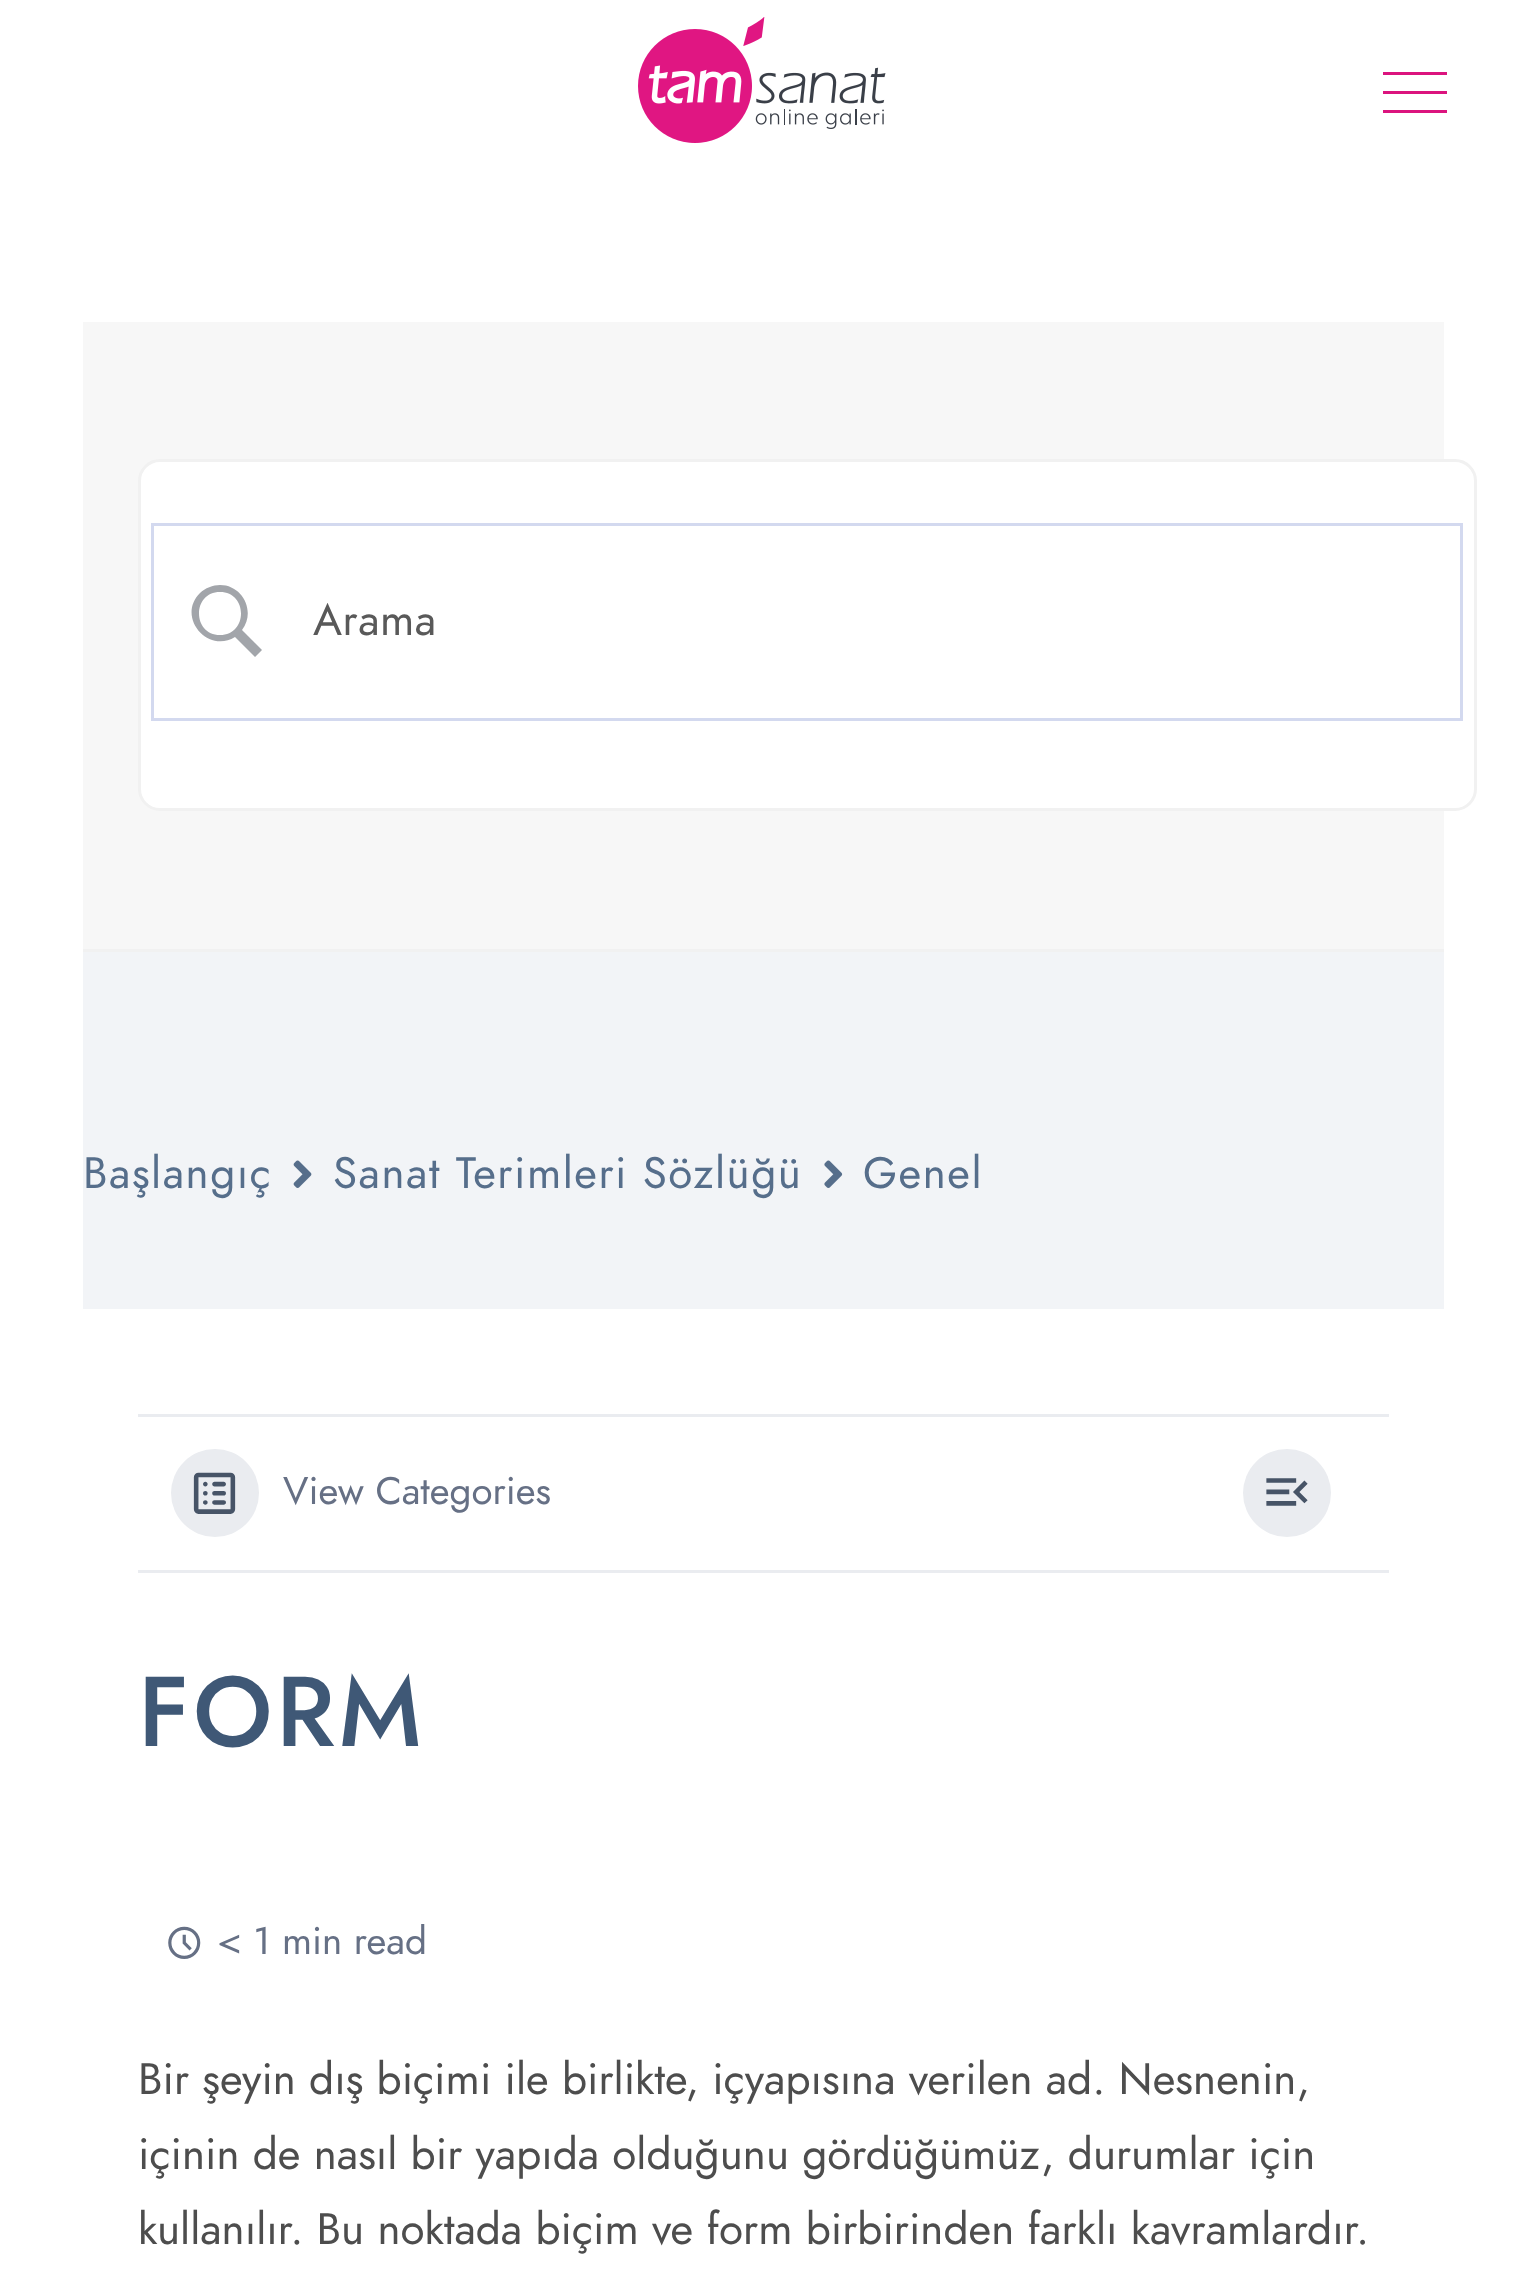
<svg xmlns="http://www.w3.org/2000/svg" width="1526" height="2279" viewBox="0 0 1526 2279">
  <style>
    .t1 { font: 44px Jost; letter-spacing: 0.5px; fill: #595959; }
    .t2 { font: 44px Jost; letter-spacing: 1.5px; fill: #566e8b; }
    .t3 { font: 38.5px Jost; fill: #667085; }
    .t4 { font: 500 99px Jost; letter-spacing: 3.5px; fill: #3f5876; }
    .t5 { font: 44px Jost; fill: #4d4d4d; }
  </style>
  <rect width="100%" height="100%" fill="#fff"/>
  <image x="638" y="17" width="248" height="126" href="images/1.png"/>
  <rect x="1383" y="91" width="64" height="3" fill="#db147e"/>
  <rect x="1383" y="72" width="64" height="3" fill="#db147e"/>
  <rect x="1383" y="110" width="64" height="3" fill="#db147e"/>
  <rect x="83" y="952" width="1361" height="357" fill="#f2f4f7"/>
  <rect x="83" y="322" width="1361" height="627" fill="#f7f7f7"/>
  <rect x="83" y="949" width="1361" height="3" fill="#f1f1f1"/>
  <rect x="139.5" y="460.5" width="1336" height="349" rx="20.5" fill="#fff" stroke="#f1f1f1" stroke-width="3"/>
  <rect x="152.5" y="524.5" width="1309" height="195" fill="none" stroke="#d3d9ef" stroke-width="3"/>
  <path d="M220 585C213 585 205 588 200 593C176 617 208 654 235 637L255 657L262 650L242 630C256 612 243 585 220 585ZM220 592C248 592 248 635 220 635C192 635 192 592 220 592Z" fill="#a2a5aa"/>
  <text x="313" y="635" class="t1">Arama</text>
  <text x="83" y="1188" class="t2">Başlangıç</text>
  <image x="293" y="1160" width="19" height="28" href="images/2.png"/>
  <text x="333" y="1188" class="t2">Sanat Terimleri Sözlüğü</text>
  <image x="824" y="1160" width="19" height="28" href="images/3.png"/>
  <text x="863" y="1188" class="t2">Genel</text>
  <rect x="138" y="1414" width="1251" height="3" fill="#eaecf0"/>
  <rect x="138" y="1570" width="1251" height="3" fill="#eaecf0"/>
  <circle cx="215" cy="1493" r="44" fill="#eaecf0"/>
  <image x="193" y="1472" width="43" height="42" href="images/4.png"/>
  <text x="283" y="1504" class="t3">View Categories</text>
  <circle cx="1287" cy="1493" r="44" fill="#eaecf0"/>
  <image x="1266" y="1478" width="42" height="28" href="images/5.png"/>
  <text x="138" y="1746" class="t4">FORM</text>
  <image x="168" y="1926" width="33" height="33" href="images/6.png"/>
  <text x="217" y="1954" class="t3">&lt; 1 min read</text>
  <text x="138" y="2094" class="t5">Bir şeyin dış biçimi ile birlikte, içyapısına verilen ad. Nesnenin,</text>
  <text x="138" y="2169" class="t5">içinin de nasıl bir yapıda olduğunu gördüğümüz, durumlar için</text>
  <text x="138" y="2244" class="t5">kullanılır. Bu noktada biçim ve form birbirinden farklı kavramlardır.</text>
</svg>
